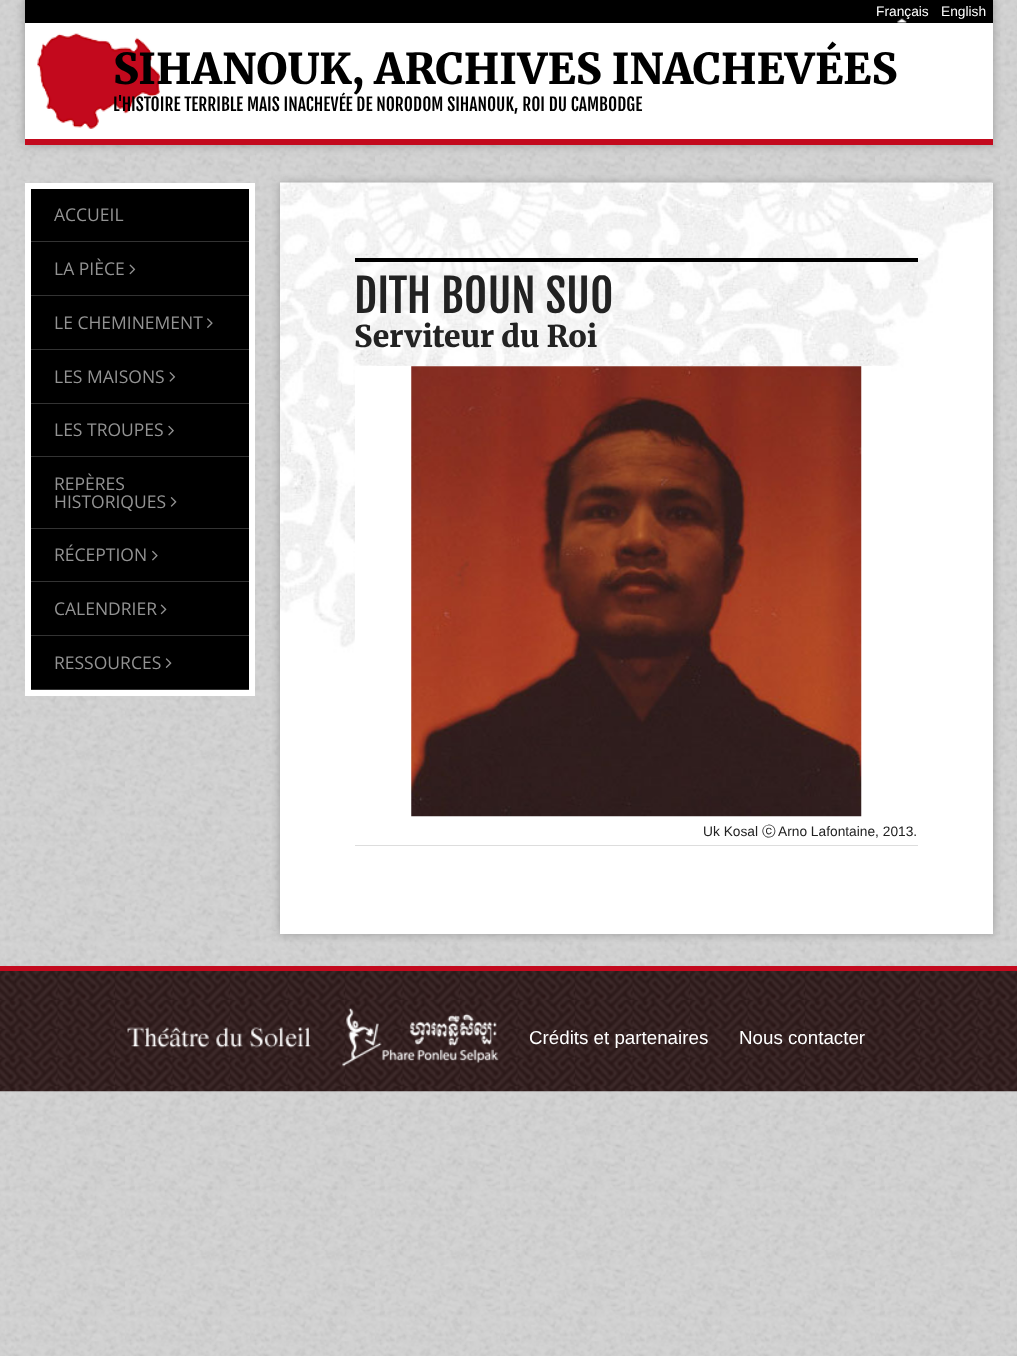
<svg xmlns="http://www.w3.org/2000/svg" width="1017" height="1356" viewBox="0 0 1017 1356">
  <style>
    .t1 { font: 13.75px Liberation Sans; fill: #fff; }
    .t2 { font: 900 42.5px Merriweather; fill: #000; }
    .t3 { font: 17.5px Fjalla One; fill: #000; }
    .t4 { font: 17.5px Open Sans; fill: #939393; }
    .t5 { font: 45px Fjalla One; fill: #222; }
    .t6 { font: 900 30px Merriweather; fill: #222; }
    .t7 { font: 13.75px Liberation Sans; fill: #222; }
    .t8 { font: 500 13.75px WenQuanYi Zen Hei; fill: #222; }
    .t9 { font: 18.75px Liberation Sans; fill: #fff; }
  </style>
  <rect width="100%" height="100%" fill="#fff"/>
  <image x="0" y="0" width="1017" height="1356" href="images/1.png"/>
  <rect x="25" y="0" width="968" height="145" fill="#999" filter="blur(4.5px)"/>
  <rect x="25" y="139" width="968" height="6" fill="#c3091d"/>
  <rect x="25" y="0" width="968" height="23" fill="#000"/>
  <image x="897" y="18" width="10" height="5" href="images/2.png"/>
  <text x="876" y="16" class="t1">Français</text>
  <text x="941" y="16" class="t1">English</text>
  <rect x="25" y="23" width="968" height="116" fill="#fff"/>
  <image x="37" y="33" width="123" height="96" href="images/3.png"/>
  <text x="113" y="84" class="t2">SIHANOUK, ARCHIVES INACHEVÉES</text>
  <text x="113" y="111" class="t3">L'HISTOIRE TERRIBLE MAIS INACHEVÉE DE NORODOM SIHANOUK, ROI DU CAMBODGE</text>
  <rect x="31" y="189" width="218" height="500" fill="#000"/>
  <rect x="28" y="186" width="224" height="507" fill="none" stroke="#fff" stroke-width="6"/>
  <rect x="31" y="241" width="218" height="1" fill="#333"/>
  <text x="54" y="221" class="t4">ACCUEIL</text>
  <rect x="31" y="295" width="218" height="1" fill="#333"/>
  <text x="54" y="275" class="t4">LA PIÈCE</text>
  <image x="129" y="264" width="7" height="11" href="images/4.png"/>
  <rect x="31" y="349" width="218" height="1" fill="#333"/>
  <text x="54" y="329" class="t4">LE CHEMINEMENT</text>
  <image x="207" y="318" width="6" height="10" href="images/5.png"/>
  <rect x="31" y="403" width="218" height="1" fill="#333"/>
  <text x="54" y="383" class="t4">LES MAISONS</text>
  <image x="169" y="372" width="7" height="10" href="images/6.png"/>
  <rect x="31" y="456" width="218" height="1" fill="#333"/>
  <text x="54" y="436" class="t4">LES TROUPES</text>
  <image x="168" y="425" width="6" height="11" href="images/7.png"/>
  <rect x="31" y="528" width="218" height="1" fill="#333"/>
  <text x="54" y="490" class="t4">REPÈRES</text>
  <text x="54" y="508" class="t4">HISTORIQUES</text>
  <image x="170" y="497" width="7" height="10" href="images/8.png"/>
  <rect x="31" y="581" width="218" height="1" fill="#333"/>
  <text x="54" y="561" class="t4">RÉCEPTION</text>
  <image x="152" y="550" width="6" height="11" href="images/9.png"/>
  <rect x="31" y="635" width="218" height="1" fill="#333"/>
  <text x="54" y="615" class="t4">CALENDRIER</text>
  <image x="160" y="604" width="7" height="11" href="images/10.png"/>
  <rect x="31" y="689" width="218" height="1" fill="#333"/>
  <text x="54" y="669" class="t4">RESSOURCES</text>
  <image x="165" y="658" width="7" height="10" href="images/11.png"/>
  <rect x="280" y="183" width="713" height="751" fill="#999" filter="blur(4.5px)"/>
  <rect x="280" y="183" width="713" height="751" fill="#fff"/>
  <image x="280" y="182" width="713" height="573" href="images/12.png"/>
  <rect x="355" y="258" width="563" height="4" fill="#000"/>
  <text x="354" y="313" class="t5">DITH BOUN SUO</text>
  <text x="354" y="347" class="t6">Serviteur du Roi</text>
  <rect x="355" y="366" width="536" height="389" fill="#fff"/>
  <image x="411" y="366" width="451" height="451" href="images/13.png"/>
  <rect x="355" y="845" width="563" height="1" fill="#ddd"/>
  <text x="703" y="836" class="t7">Uk Kosal</text>
  <text x="762" y="836" class="t8">ⓒ</text>
  <text x="778" y="836" class="t7">Arno Lafontaine, 2013.</text>
  <image x="0" y="971" width="1017" height="121" href="images/14.png"/>
  <rect x="0" y="966" width="1017" height="5" fill="#c3091d"/>
  <image x="127" y="1027" width="184" height="21" href="images/15.png"/>
  <image x="342" y="1008" width="157" height="59" href="images/16.png"/>
  <text x="529" y="1044" class="t9">Crédits et partenaires</text>
  <text x="739" y="1044" class="t9">Nous contacter</text>
</svg>
